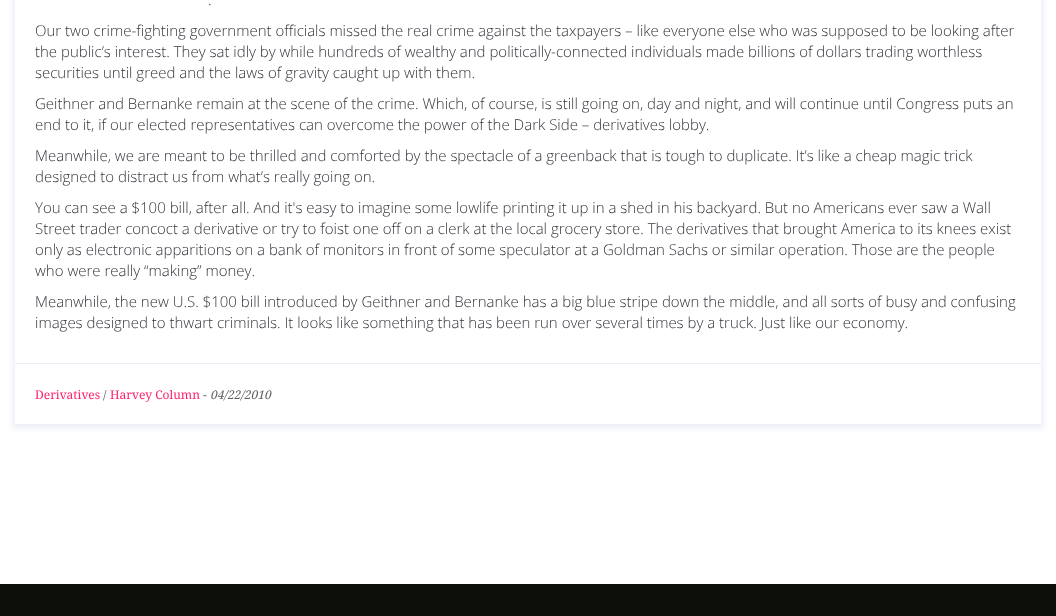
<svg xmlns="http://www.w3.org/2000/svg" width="1056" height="616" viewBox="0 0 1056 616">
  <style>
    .t1 { font: 300 15px Open Sans; fill: #34343c; }
    .t2 { font: 12px Droid Serif; fill: #ff206e; }
    .t3 { font: 12px Droid Serif; fill: #606060; }
    .t4 { font: italic 12px Droid Serif; fill: #606060; }
  </style>
  <defs>
    <clipPath id="clip1"><path d="M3 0H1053V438H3ZM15-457H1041V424H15Z" clip-rule="evenodd"/></clipPath>
  </defs>
  <rect width="100%" height="100%" fill="#fff"/>
  <g clip-path="url(#clip1)">
    <rect x="12" y="-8" width="1032" height="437" fill="#eff1f8" filter="blur(2.5px)"/>
  </g>
  <text x="208" y="5" class="t1">.</text>
  <text x="35" y="36" class="t1">Our two crime-fighting government officials missed the real crime against the taxpayers – like everyone else who was supposed to be looking after</text>
  <text x="35" y="57" class="t1">the public’s interest. They sat idly by while hundreds of wealthy and politically-connected individuals made billions of dollars trading worthless</text>
  <text x="35" y="78" class="t1">securities until greed and the laws of gravity caught up with them.</text>
  <text x="35" y="109" class="t1">Geithner and Bernanke remain at the scene of the crime. Which, of course, is still going on, day and night, and will continue until Congress puts an</text>
  <text x="35" y="130" class="t1">end to it, if our elected representatives can overcome the power of the Dark Side – derivatives lobby.</text>
  <text x="35" y="161" class="t1">Meanwhile, we are meant to be thrilled and comforted by the spectacle of a greenback that is tough to duplicate. It’s like a cheap magic trick</text>
  <text x="35" y="182" class="t1">designed to distract us from what’s really going on.</text>
  <text x="35" y="213" class="t1">You can see a $100 bill, after all. And it's easy to imagine some lowlife printing it up in a shed in his backyard. But no Americans ever saw a Wall</text>
  <text x="35" y="234" class="t1">Street trader concoct a derivative or try to foist one off on a clerk at the local grocery store. The derivatives that brought America to its knees exist</text>
  <text x="35" y="255" class="t1">only as electronic apparitions on a bank of monitors in front of some speculator at a Goldman Sachs or similar operation. Those are the people</text>
  <text x="35" y="276" class="t1">who were really “making” money.</text>
  <text x="35" y="307" class="t1">Meanwhile, the new U.S. $100 bill introduced by Geithner and Bernanke has a big blue stripe down the middle, and all sorts of busy and confusing</text>
  <text x="35" y="328" class="t1">images designed to thwart criminals. It looks like something that has been run over several times by a truck. Just like our economy.</text>
  <rect x="15" y="363" width="1026" height="1" fill="#ebeef6"/>
  <text x="35" y="399" class="t2">Derivatives</text>
  <text x="103" y="399" class="t3">/</text>
  <text x="110" y="399" class="t2">Harvey Column</text>
  <text x="203" y="399" class="t3">-</text>
  <text x="210" y="399" class="t4">04/22/2010</text>
  <rect x="0" y="584" width="1056" height="32" fill="#0c0f0a"/>
</svg>
